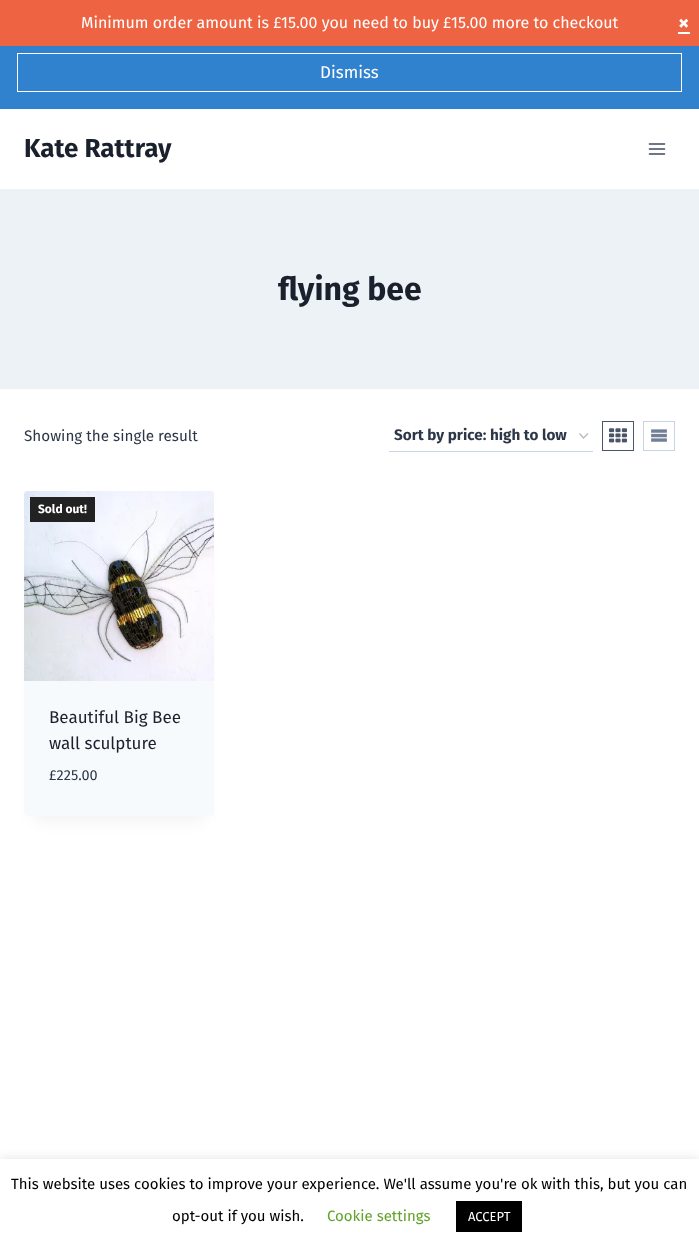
<svg xmlns="http://www.w3.org/2000/svg" width="699" height="1249" viewBox="0 0 699 1249">
  <style>
    .t1 { font: 16px Fira Sans; fill: #fff; }
    .t2 { font: bold 22px Fira Sans; fill: #fff; }
    .t3 { font: 17px Fira Sans; fill: #fff; }
    .t4 { font: bold 26px Fira Sans; fill: #1a202c; }
    .t5 { font: bold 32px Fira Sans; fill: #1a202c; }
    .t6 { font: 15.25px Fira Sans; fill: #2d3748; }
    .t7 { font: bold 15.25px Fira Sans; fill: #2d3748; }
    .t8 { font: bold 12px Fira Sans; fill: #fff; }
    .t9 { font: 17px Fira Sans; fill: #1a202c; }
    .t10 { font: 14.5px Fira Sans; fill: #2d3748; }
    .t11 { font: 15px Fira Sans; fill: #000; }
    .t12 { font: 15px Fira Sans; fill: #62a329; }
    .t13 { font: 13px Fira Sans; fill: #fff; }
  </style>
  <rect width="100%" height="100%" fill="#fff"/>
  <rect x="0" y="0" width="699" height="46" fill="#ee6443"/>
  <text x="81" y="28" class="t1">Minimum order amount is £</text>
  <text x="281" y="28" class="t1">15.00 you need to buy £</text>
  <text x="451" y="28" class="t1">15.00 more to checkout</text>
  <text x="678" y="30" class="t2">×</text>
  <rect x="678" y="32" width="12" height="2" fill="#fff"/>
  <rect x="0" y="46" width="699" height="63" fill="#3182ce"/>
  <rect x="17.5" y="53.5" width="664" height="38" fill="none" stroke="#fff"/>
  <text x="320" y="78" class="t3">Dismiss</text>
  <text x="24" y="157" class="t4">Kate Rattray</text>
  <image x="648" y="143" width="18" height="12" href="images/1.png"/>
  <rect x="0" y="189" width="699" height="200" fill="#edf2f7"/>
  <text x="278" y="300" class="t5">flying bee</text>
  <text x="24" y="441" class="t6">Showing the single result</text>
  <path d="M579.5 433.5L583.5 438L588 433.5" fill="none" stroke="#bbb" stroke-width="1.4"/>
  <rect x="389" y="451" width="204" height="1" fill="#cbd5e0"/>
  <text x="394" y="440" class="t7">Sort by price: high to low</text>
  <rect x="602.5" y="421.5" width="31" height="29" fill="none" stroke="#4a5568"/>
  <image x="609" y="428" width="18" height="15" href="images/2.png"/>
  <rect x="643.5" y="421.5" width="31" height="29" fill="none" stroke="#cbd5e0"/>
  <image x="651" y="429" width="16" height="13" href="images/3.png"/>
  <rect x="34" y="516" width="170" height="305" fill="#0000000d" filter="blur(7.5px)"/>
  <rect x="24" y="491" width="190" height="325" rx="4" fill="#f7fafc"/>
  <image x="24" y="491" width="190" height="190" href="images/4.png"/>
  <rect x="30" y="497" width="65" height="25" fill="#222"/>
  <text x="38" y="513" class="t8">Sold out!</text>
  <text x="49" y="723" class="t9">Beautiful Big Bee</text>
  <text x="49" y="749" class="t9">wall sculpture</text>
  <text x="49" y="780" class="t10">£225.00</text>
  <rect x="0" y="1158" width="699" height="90" fill="#acabab4d" filter="blur(5px)"/>
  <rect x="0" y="1159" width="699" height="90" fill="#fff"/>
  <text x="11" y="1189" class="t11">This website uses cookies to improve your experience. We'll assume you're ok with this, but you can</text>
  <text x="172" y="1221" class="t11">opt-out if you wish.</text>
  <text x="327" y="1221" class="t12">Cookie settings</text>
  <rect x="456" y="1201" width="66" height="31" fill="#000"/>
  <text x="468" y="1221" class="t13">ACCEPT</text>
</svg>
